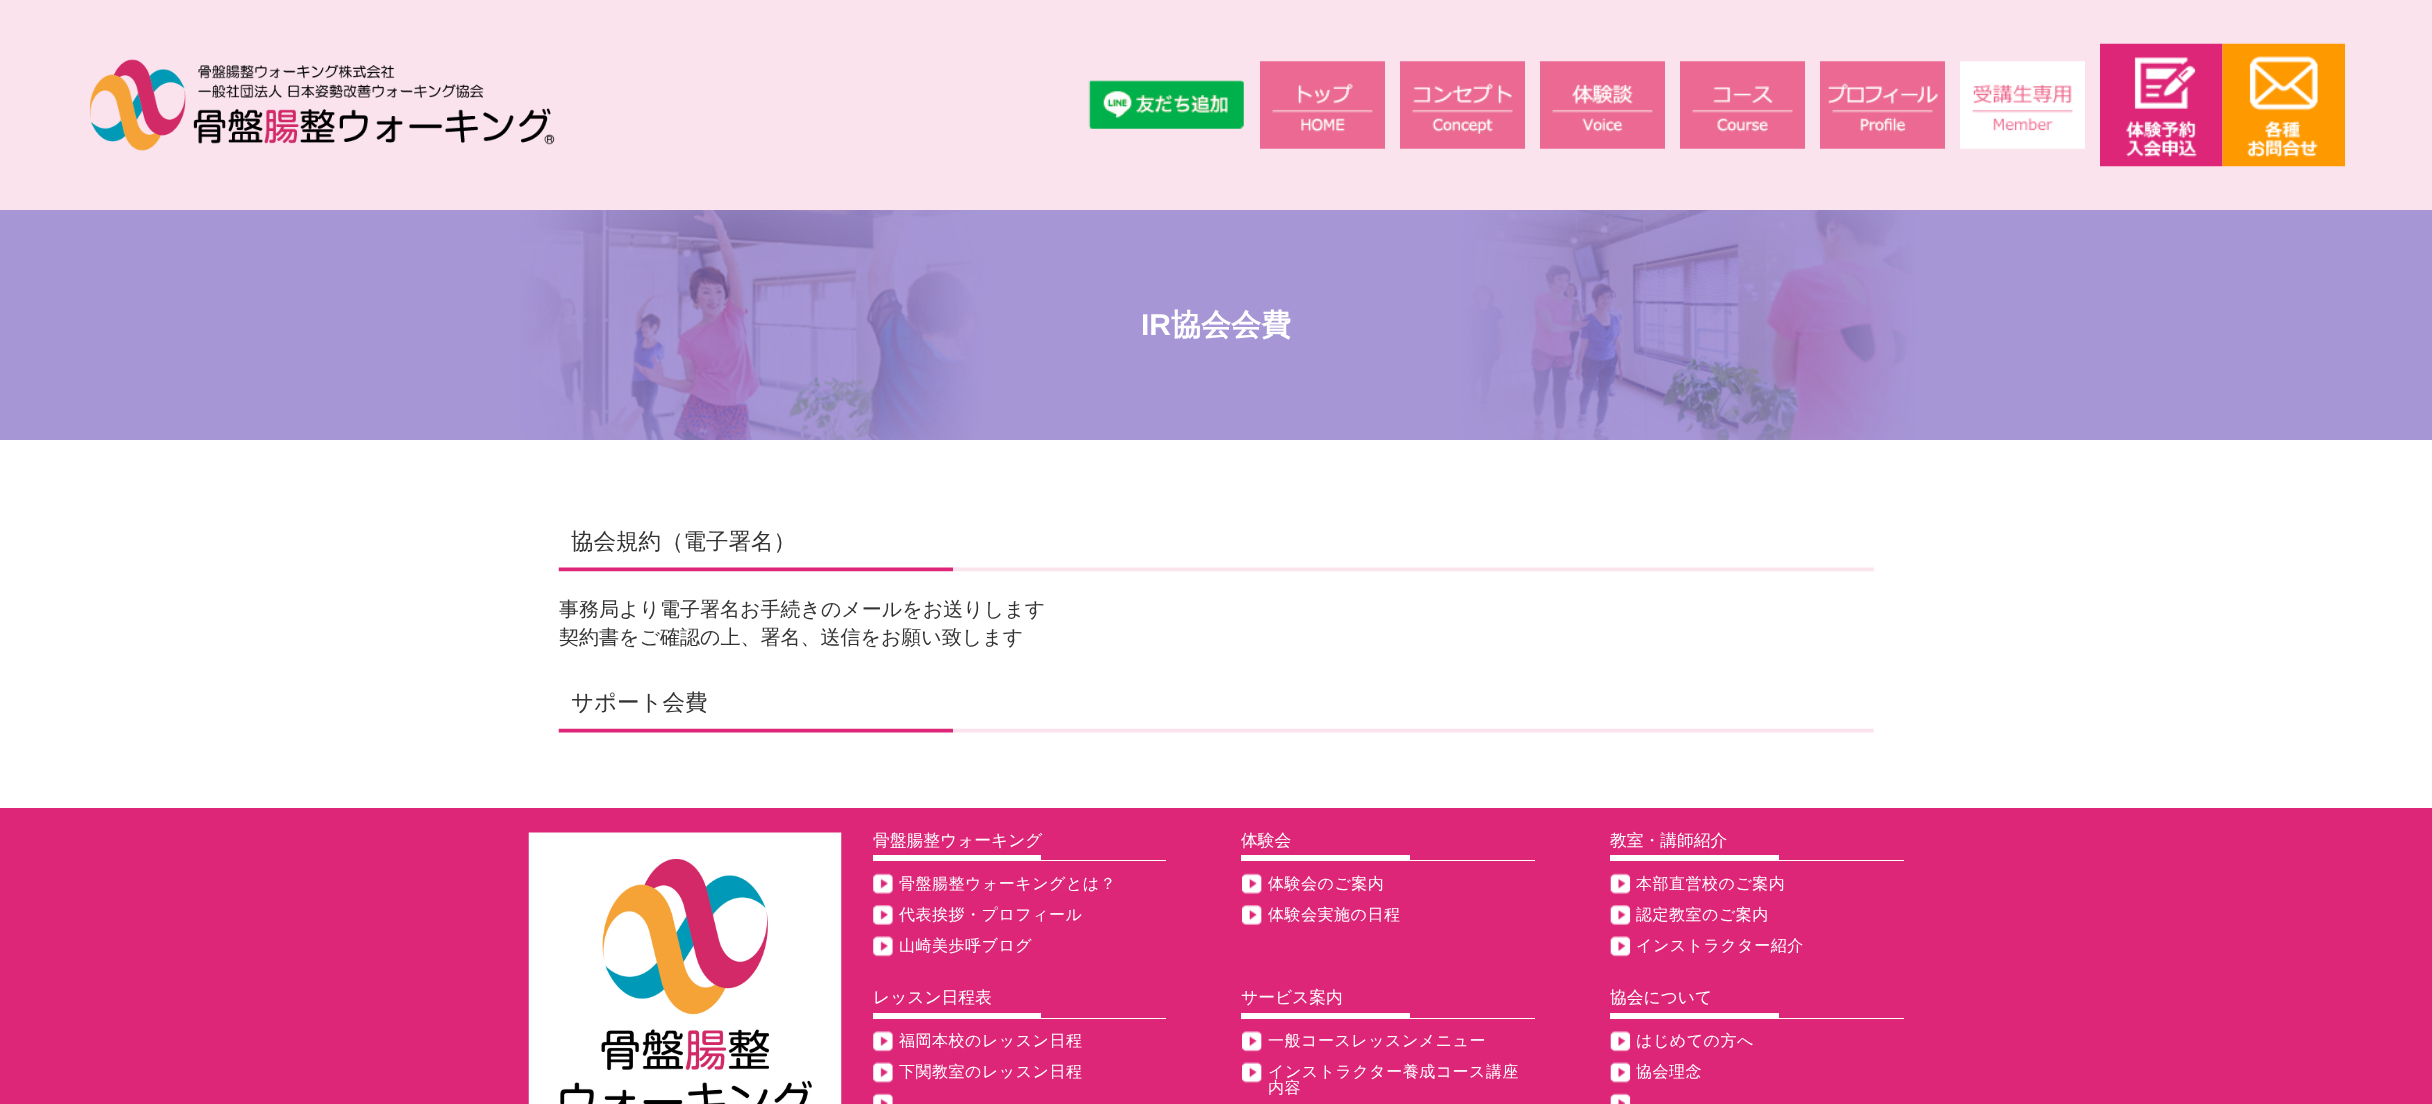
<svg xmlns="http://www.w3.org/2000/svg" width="2432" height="1104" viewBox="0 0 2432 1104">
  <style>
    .t1 { font: bold 30px Liberation Sans; fill: #fff; }
    .t2 { font: bold 30px WenQuanYi Zen Hei; fill: #fff; }
    .t3 { font: 500 22.5px WenQuanYi Zen Hei; fill: #333; }
    .t4 { font: 500 20px WenQuanYi Zen Hei; fill: #333; }
    .t5 { font: 500 16.75px WenQuanYi Zen Hei; fill: #fff; }
    .t6 { font: 500 16px WenQuanYi Zen Hei; letter-spacing: 0.5px; fill: #fff; }
  </style>
  <rect width="100%" height="100%" fill="#fff"/>
  <rect x="0" y="0" width="2432" height="210" fill="#fbe3ee"/>
  <image x="89" y="59" width="466" height="92" href="images/1.png"/>
  <image x="1088" y="80" width="156" height="49" href="images/2.png"/>
  <image x="1260" y="61" width="125" height="88" href="images/3.png"/>
  <image x="1400" y="61" width="125" height="88" href="images/4.png"/>
  <image x="1540" y="61" width="125" height="88" href="images/5.png"/>
  <image x="1680" y="61" width="125" height="88" href="images/6.png"/>
  <image x="1820" y="61" width="125" height="88" href="images/7.png"/>
  <image x="1960" y="61" width="125" height="88" href="images/8.png"/>
  <image x="2100" y="43" width="123" height="124" href="images/9.png"/>
  <image x="2222" y="43" width="123" height="124" href="images/10.png"/>
  <image x="0" y="210" width="2432" height="230" href="images/11.png"/>
  <text x="1141" y="335" class="t1">IR</text>
  <text x="1171" y="335" class="t2">協会会費</text>
  <image x="558" y="567" width="1316" height="5" href="images/12.png"/>
  <text x="571" y="549" class="t3">協会規約（電子署名）</text>
  <text x="559" y="616" class="t4">事務局より電子署名お手続きのメールをお送りします</text>
  <text x="559" y="644" class="t4">契約書をご確認の上、署名、送信をお願い致します</text>
  <image x="558" y="728" width="1316" height="5" href="images/13.png"/>
  <text x="571" y="710" class="t3">サポート会費</text>
  <rect x="0" y="808" width="2432" height="296" fill="#dd2678"/>
  <image x="528" y="832" width="314" height="272" href="images/14.png"/>
  <rect x="873" y="855" width="168" height="5" fill="#fff"/>
  <text x="873" y="846" class="t5">骨盤腸整ウォーキング</text>
  <rect x="873" y="860" width="293" height="1" fill="#fff"/>
  <image x="873" y="873" width="20" height="21" href="images/15.png"/>
  <text x="899" y="889" class="t6">骨盤腸整ウォーキングとは？</text>
  <image x="873" y="905" width="20" height="20" href="images/16.png"/>
  <text x="899" y="920" class="t6">代表挨拶・プロフィール</text>
  <image x="873" y="936" width="20" height="21" href="images/17.png"/>
  <text x="899" y="951" class="t6">山崎美歩呼ブログ</text>
  <rect x="1241" y="855" width="169" height="5" fill="#fff"/>
  <text x="1241" y="846" class="t5">体験会</text>
  <rect x="1241" y="860" width="294" height="1" fill="#fff"/>
  <image x="1242" y="873" width="20" height="21" href="images/18.png"/>
  <text x="1268" y="889" class="t6">体験会のご案内</text>
  <image x="1242" y="905" width="20" height="20" href="images/19.png"/>
  <text x="1268" y="920" class="t6">体験会実施の日程</text>
  <rect x="1610" y="855" width="169" height="5" fill="#fff"/>
  <text x="1610" y="846" class="t5">教室・講師紹介</text>
  <rect x="1610" y="860" width="294" height="1" fill="#fff"/>
  <image x="1610" y="873" width="21" height="21" href="images/20.png"/>
  <text x="1636" y="889" class="t6">本部直営校のご案内</text>
  <image x="1610" y="905" width="21" height="20" href="images/21.png"/>
  <text x="1636" y="920" class="t6">認定教室のご案内</text>
  <image x="1610" y="936" width="21" height="21" href="images/22.png"/>
  <text x="1636" y="951" class="t6">インストラクター紹介</text>
  <rect x="873" y="1013" width="168" height="5" fill="#fff"/>
  <text x="873" y="1003" class="t5">レッスン日程表</text>
  <rect x="873" y="1018" width="293" height="1" fill="#fff"/>
  <image x="873" y="1031" width="20" height="21" href="images/17.png"/>
  <text x="899" y="1046" class="t6">福岡本校のレッスン日程</text>
  <image x="873" y="1062" width="20" height="21" href="images/23.png"/>
  <text x="899" y="1077" class="t6">下関教室のレッスン日程</text>
  <image x="873" y="1093" width="20" height="11" href="images/24.png"/>
  <rect x="1241" y="1013" width="169" height="5" fill="#fff"/>
  <text x="1241" y="1003" class="t5">サービス案内</text>
  <rect x="1241" y="1018" width="294" height="1" fill="#fff"/>
  <image x="1242" y="1031" width="20" height="21" href="images/25.png"/>
  <text x="1268" y="1046" class="t6">一般コースレッスンメニュー</text>
  <image x="1242" y="1062" width="20" height="21" href="images/26.png"/>
  <text x="1268" y="1077" class="t6">インストラクター養成コース講座</text>
  <text x="1268" y="1093" class="t6">内容</text>
  <rect x="1610" y="1013" width="169" height="5" fill="#fff"/>
  <text x="1610" y="1003" class="t5">協会について</text>
  <rect x="1610" y="1018" width="294" height="1" fill="#fff"/>
  <image x="1610" y="1031" width="21" height="21" href="images/22.png"/>
  <text x="1636" y="1046" class="t6">はじめての方へ</text>
  <image x="1610" y="1062" width="21" height="21" href="images/27.png"/>
  <text x="1636" y="1077" class="t6">協会理念</text>
  <image x="1610" y="1093" width="21" height="11" href="images/28.png"/>
</svg>
